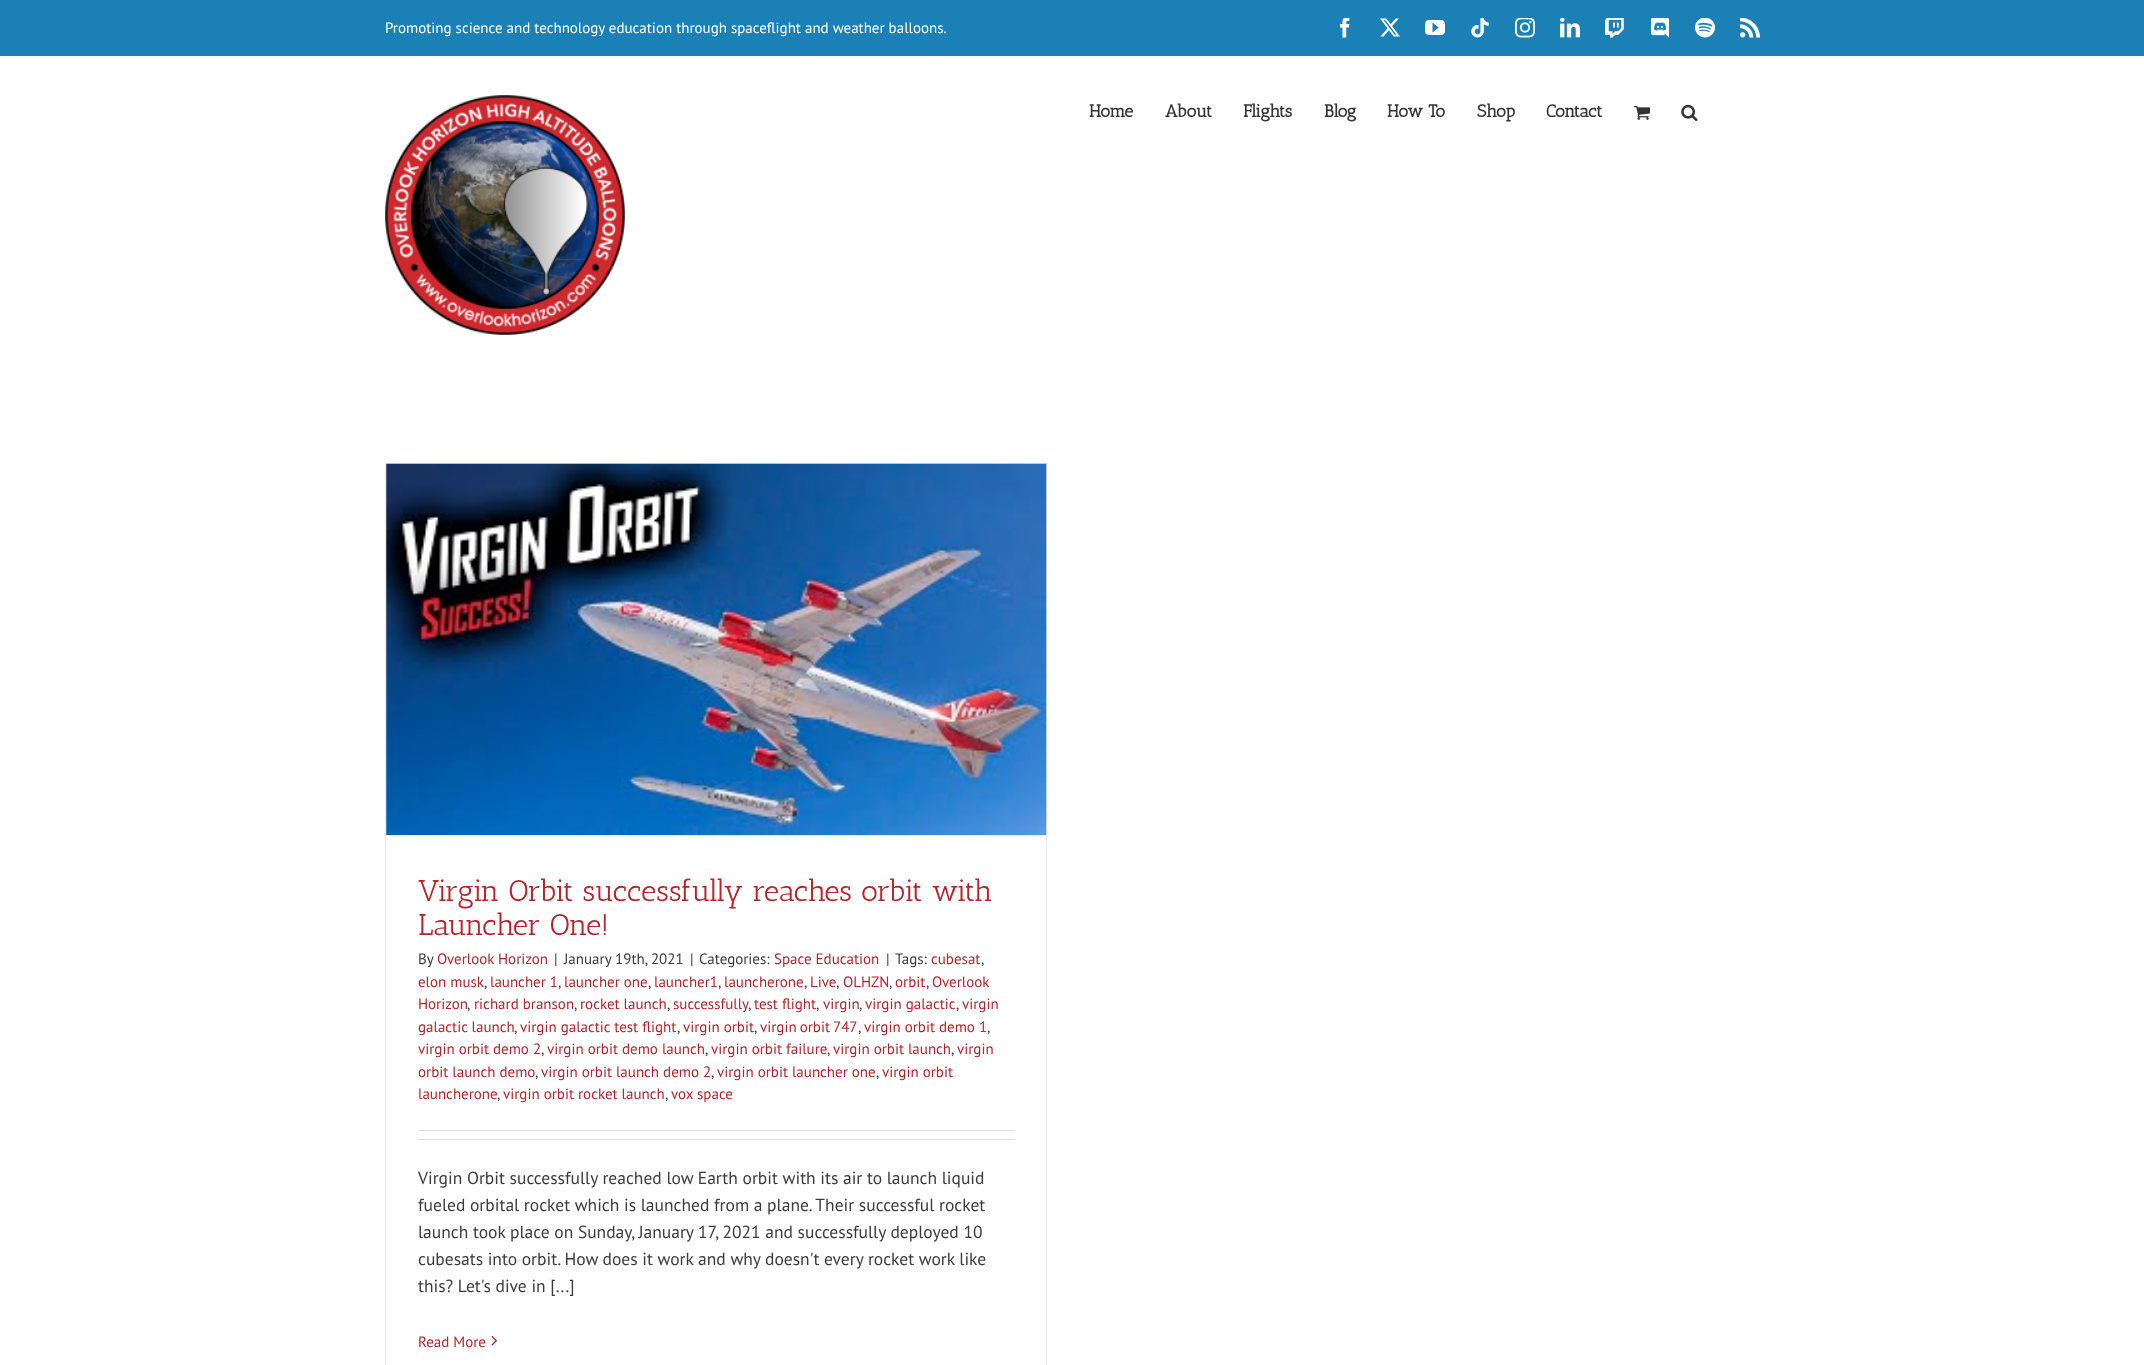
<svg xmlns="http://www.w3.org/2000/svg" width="2144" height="1365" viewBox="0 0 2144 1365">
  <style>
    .t1 { font: 15px PT Sans; fill: #fff; }
    .t2 { font: bold 17.5px Antic Slab; fill: #333; }
    .t3 { font: 30px Antic Slab; fill: #b5242b; }
    .t4 { font: 15px PT Sans; fill: #3a3a3a; }
    .t5 { font: 15px PT Sans; fill: #b5242b; }
    .t6 { font: 17.5px PT Sans; fill: #3a3a3a; }
  </style>
  <rect width="100%" height="100%" fill="#fff"/>
  <rect x="0" y="0" width="2144" height="56" fill="#1a80b6"/>
  <text x="385" y="33" class="t1">Promoting science and technology education through spaceflight and weather balloons.</text>
  <image x="1340" y="18" width="10" height="20" href="images/1.png"/>
  <image x="1380" y="18" width="20" height="19" href="images/2.png"/>
  <image x="1425" y="20" width="20" height="15" href="images/3.png"/>
  <image x="1471" y="18" width="18" height="20" href="images/4.png"/>
  <image x="1515" y="18" width="20" height="20" href="images/5.png"/>
  <image x="1560" y="18" width="20" height="20" href="images/6.png"/>
  <image x="1605" y="18" width="19" height="20" href="images/7.png"/>
  <image x="1650" y="18" width="20" height="20" href="images/8.png"/>
  <image x="1695" y="18" width="20" height="20" href="images/9.png"/>
  <image x="1740" y="18" width="20" height="20" href="images/10.png"/>
  <image x="385" y="95" width="240" height="240" href="images/11.png"/>
  <text x="1089" y="117" class="t2">Home</text>
  <text x="1165" y="117" class="t2">About</text>
  <text x="1243" y="117" class="t2">Flights</text>
  <text x="1324" y="117" class="t2">Blog</text>
  <text x="1387" y="117" class="t2">How To</text>
  <text x="1477" y="117" class="t2">Shop</text>
  <text x="1546" y="117" class="t2">Contact</text>
  <image x="1633" y="106" width="17" height="14" href="images/12.png"/>
  <image x="1681" y="104" width="17" height="18" href="images/13.png"/>
  <rect x="385" y="463" width="663" height="1" fill="#ebeaea"/>
  <rect x="1046" y="463" width="1" height="902" fill="#ebeaea"/>
  <rect x="385" y="463" width="1" height="902" fill="#ebeaea"/>
  <rect x="386" y="835" width="660" height="1" fill="#ebeaea"/>
  <image x="386" y="463" width="661" height="372" href="images/14.png"/>
  <text x="418" y="901" class="t3">Virgin Orbit successfully reaches orbit with</text>
  <text x="418" y="935" class="t3">Launcher One!</text>
  <text x="418" y="964" class="t4">By</text>
  <text x="437" y="964" class="t5">Overlook Horizon</text>
  <text x="554" y="964" class="t4">|</text>
  <text x="564" y="964" class="t4">January 19th, 2021</text>
  <text x="690" y="964" class="t4">|</text>
  <text x="699" y="964" class="t4">Categories:</text>
  <text x="774" y="964" class="t5">Space Education</text>
  <text x="886" y="964" class="t4">|</text>
  <text x="895" y="964" class="t4">Tags:</text>
  <text x="931" y="964" class="t5">cubesat</text>
  <text x="981" y="964" class="t4">,</text>
  <text x="418" y="987" class="t5">elon musk</text>
  <text x="484" y="987" class="t4">,</text>
  <text x="490" y="987" class="t5">launcher 1</text>
  <text x="558" y="987" class="t4">,</text>
  <text x="564" y="987" class="t5">launcher one</text>
  <text x="648" y="987" class="t4">,</text>
  <text x="654" y="987" class="t5">launcher1</text>
  <text x="718" y="987" class="t4">,</text>
  <text x="724" y="987" class="t5">launcherone</text>
  <text x="804" y="987" class="t4">,</text>
  <text x="810" y="987" class="t5">Live</text>
  <text x="836" y="987" class="t4">,</text>
  <text x="843" y="987" class="t5">OLHZN</text>
  <text x="889" y="987" class="t4">,</text>
  <text x="895" y="987" class="t5">orbit</text>
  <text x="926" y="987" class="t4">,</text>
  <text x="932" y="987" class="t5">Overlook</text>
  <text x="418" y="1009" class="t5">Horizon</text>
  <text x="467" y="1009" class="t4">,</text>
  <text x="474" y="1009" class="t5">richard branson</text>
  <text x="574" y="1009" class="t4">,</text>
  <text x="580" y="1009" class="t5">rocket launch</text>
  <text x="667" y="1009" class="t4">,</text>
  <text x="673" y="1009" class="t5">successfully</text>
  <text x="748" y="1009" class="t4">,</text>
  <text x="754" y="1009" class="t5">test flight</text>
  <text x="816" y="1009" class="t4">,</text>
  <text x="823" y="1009" class="t5">virgin</text>
  <text x="859" y="1009" class="t4">,</text>
  <text x="865" y="1009" class="t5">virgin galactic</text>
  <text x="956" y="1009" class="t4">,</text>
  <text x="962" y="1009" class="t5">virgin</text>
  <text x="418" y="1032" class="t5">galactic launch</text>
  <text x="514" y="1032" class="t4">,</text>
  <text x="520" y="1032" class="t5">virgin galactic test flight</text>
  <text x="677" y="1032" class="t4">,</text>
  <text x="683" y="1032" class="t5">virgin orbit</text>
  <text x="754" y="1032" class="t4">,</text>
  <text x="760" y="1032" word-spacing="-1" class="t5">virgin orbit 747</text>
  <text x="858" y="1032" class="t4">,</text>
  <text x="864" y="1032" class="t5">virgin orbit demo 1</text>
  <text x="987" y="1032" class="t4">,</text>
  <text x="418" y="1054" class="t5">virgin orbit demo 2</text>
  <text x="541" y="1054" class="t4">,</text>
  <text x="547" y="1054" class="t5">virgin orbit demo launch</text>
  <text x="705" y="1054" class="t4">,</text>
  <text x="711" y="1054" class="t5">virgin orbit failure</text>
  <text x="827" y="1054" class="t4">,</text>
  <text x="833" y="1054" class="t5">virgin orbit launch</text>
  <text x="951" y="1054" class="t4">,</text>
  <text x="957" y="1054" class="t5">virgin</text>
  <text x="418" y="1077" class="t5">orbit launch demo</text>
  <text x="535" y="1077" class="t4">,</text>
  <text x="541" y="1077" class="t5">virgin orbit launch demo 2</text>
  <text x="711" y="1077" class="t4">,</text>
  <text x="717" y="1077" class="t5">virgin orbit launcher one</text>
  <text x="876" y="1077" class="t4">,</text>
  <text x="882" y="1077" class="t5">virgin orbit</text>
  <text x="418" y="1099" class="t5">launcherone</text>
  <text x="497" y="1099" class="t4">,</text>
  <text x="503" y="1099" class="t5">virgin orbit rocket launch</text>
  <text x="665" y="1099" class="t4">,</text>
  <text x="671" y="1099" class="t5">vox space</text>
  <rect x="418" y="1130" width="597" height="1" fill="#e0dede"/>
  <rect x="418" y="1139" width="597" height="1" fill="#e0dede"/>
  <text x="418" y="1184" class="t6">Virgin Orbit successfully reached low Earth orbit with its air to launch liquid</text>
  <text x="418" y="1211" class="t6">fueled orbital rocket which is launched from a plane. Their successful rocket</text>
  <text x="418" y="1238" class="t6">launch took place on Sunday, January 17, 2021 and successfully deployed 10</text>
  <text x="418" y="1265" class="t6">cubesats into orbit. How does it work and why doesn't every rocket work like</text>
  <text x="418" y="1292" class="t6">this? Let's dive in [...]</text>
  <text x="418" y="1347" class="t5">Read More</text>
  <image x="491" y="1335" width="6" height="11" href="images/15.png"/>
</svg>
